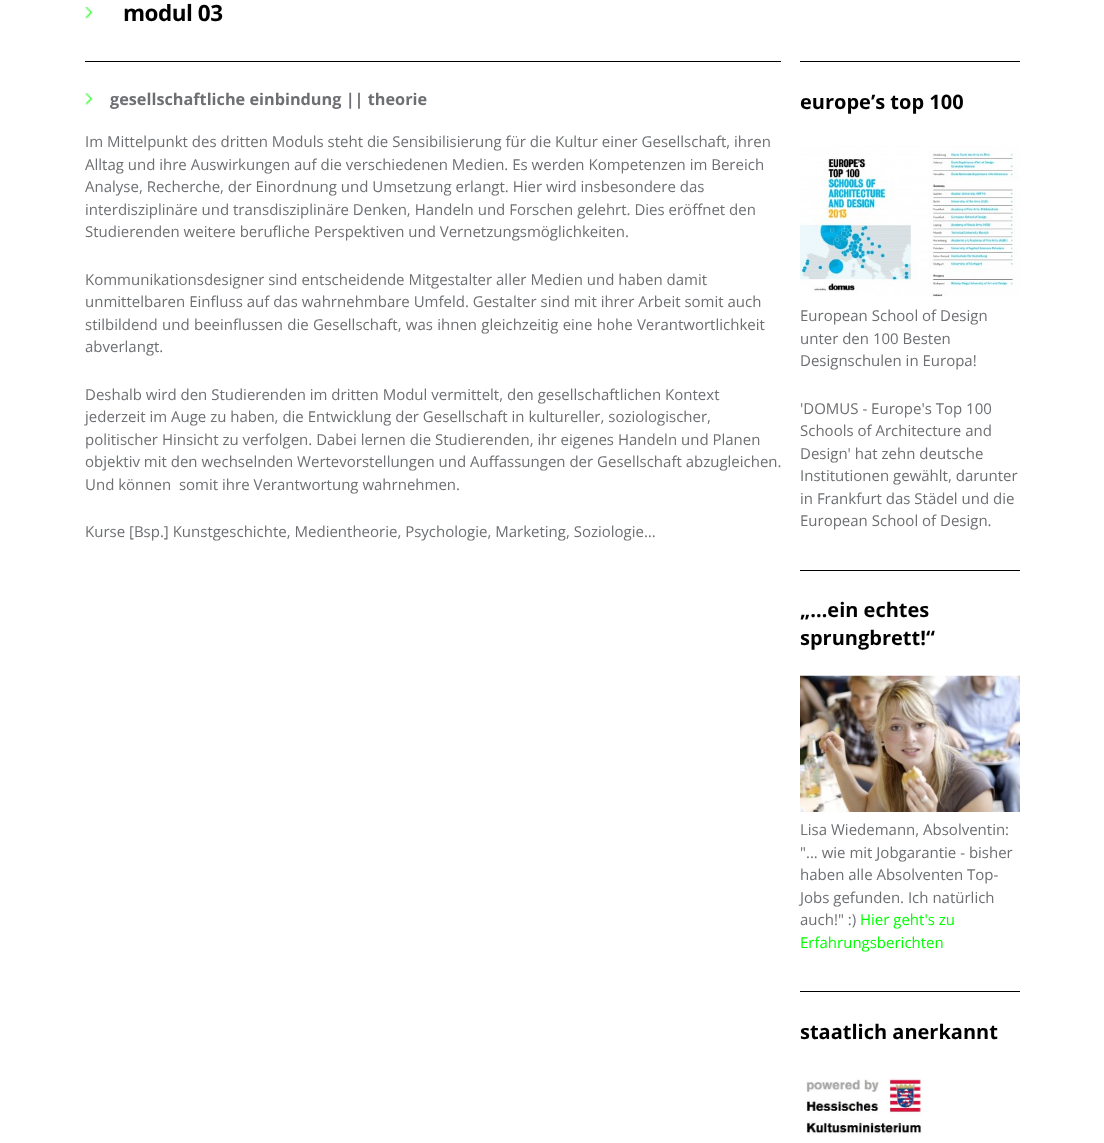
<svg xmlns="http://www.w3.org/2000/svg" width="1104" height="1143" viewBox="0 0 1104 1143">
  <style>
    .t1 { font: bold 22.5px Open Sans; letter-spacing: -0.5px; fill: #000; }
    .t2 { font: bold 16.25px Open Sans; fill: #6d6f72; }
    .t3 { font: 15px Open Sans; fill: #6d6f72; }
    .t4 { font: bold 20px Open Sans; fill: #000; }
    .t5 { font: 15px Open Sans; fill: #0f0; }
  </style>
  <rect width="100%" height="100%" fill="#fff"/>
  <image x="85" y="7" width="8" height="12" href="images/1.png"/>
  <text x="123" y="21" class="t1">modul 03</text>
  <rect x="85" y="61" width="696" height="1" fill="#000"/>
  <image x="85" y="93" width="8" height="12" href="images/2.png"/>
  <text x="110" y="105" class="t2">gesellschaftliche einbindung || theorie</text>
  <text x="85" y="147" class="t3">Im Mittelpunkt des dritten Moduls steht die Sensibilisierung für die Kultur einer Gesellschaft, ihren</text>
  <text x="85" y="170" class="t3">Alltag und ihre Auswirkungen auf die verschiedenen Medien. Es werden Kompetenzen im Bereich</text>
  <text x="85" y="192" class="t3">Analyse, Recherche, der Einordnung und Umsetzung erlangt. Hier wird insbesondere das</text>
  <text x="85" y="215" class="t3">interdisziplinäre und transdisziplinäre Denken, Handeln und Forschen gelehrt. Dies eröffnet den</text>
  <text x="85" y="237" class="t3">Studierenden weitere berufliche Perspektiven und Vernetzungsmöglichkeiten.</text>
  <text x="85" y="285" class="t3">Kommunikationsdesigner sind entscheidende Mitgestalter aller Medien und haben damit</text>
  <text x="85" y="307" class="t3">unmittelbaren Einfluss auf das wahrnehmbare Umfeld. Gestalter sind mit ihrer Arbeit somit auch</text>
  <text x="85" y="330" word-spacing="0.4" class="t3">stilbildend und beeinflussen die Gesellschaft, was ihnen gleichzeitig eine hohe Verantwortlichkeit</text>
  <text x="85" y="352" class="t3">abverlangt.</text>
  <text x="85" y="400" class="t3">Deshalb wird den Studierenden im dritten Modul vermittelt, den gesellschaftlichen Kontext</text>
  <text x="85" y="422" class="t3">jederzeit im Auge zu haben, die Entwicklung der Gesellschaft in kultureller, soziologischer,</text>
  <text x="85" y="445" class="t3">politischer Hinsicht zu verfolgen. Dabei lernen die Studierenden, ihr eigenes Handeln und Planen</text>
  <text x="85" y="467" class="t3">objektiv mit den wechselnden Wertevorstellungen und Auffassungen der Gesellschaft abzugleichen.</text>
  <text x="85" y="490" class="t3" xml:space="preserve">Und können  somit ihre Verantwortung wahrnehmen.</text>
  <text x="85" y="537" class="t3">Kurse [Bsp.] Kunstgeschichte, Medientheorie, Psychologie, Marketing, Soziologie…</text>
  <rect x="800" y="61" width="220" height="1" fill="#000"/>
  <text x="800" y="109" class="t4">europe’s top 100</text>
  <image x="800" y="146" width="220" height="151" href="images/3.png"/>
  <text x="800" y="321" class="t3">European School of Design</text>
  <text x="800" y="344" class="t3">unter den 100 Besten</text>
  <text x="800" y="366" class="t3">Designschulen in Europa!</text>
  <text x="800" y="414" class="t3">'DOMUS - Europe's Top 100</text>
  <text x="800" y="436" class="t3">Schools of Architecture and</text>
  <text x="800" y="459" class="t3">Design' hat zehn deutsche</text>
  <text x="800" y="481" class="t3">Institutionen gewählt, darunter</text>
  <text x="800" y="504" class="t3">in Frankfurt das Städel und die</text>
  <text x="800" y="526" class="t3">European School of Design.</text>
  <rect x="800" y="570" width="220" height="1" fill="#000"/>
  <text x="800" y="617" class="t4">„…ein echtes</text>
  <text x="800" y="645" class="t4">sprungbrett!“</text>
  <image x="800" y="675" width="220" height="137" href="images/4.png"/>
  <text x="800" y="835" class="t3">Lisa Wiedemann, Absolventin:</text>
  <text x="800" y="858" class="t3">"... wie mit Jobgarantie - bisher</text>
  <text x="800" y="880" class="t3">haben alle Absolventen Top-</text>
  <text x="800" y="903" class="t3">Jobs gefunden. Ich natürlich</text>
  <text x="800" y="925" class="t3">auch!" :)</text>
  <text x="860" y="925" class="t5">Hier geht's zu</text>
  <text x="800" y="948" class="t5">Erfahrungsberichten</text>
  <rect x="800" y="991" width="220" height="1" fill="#000"/>
  <text x="800" y="1039" class="t4">staatlich anerkannt</text>
  <image x="806" y="1078" width="117" height="57" href="images/5.png"/>
</svg>
